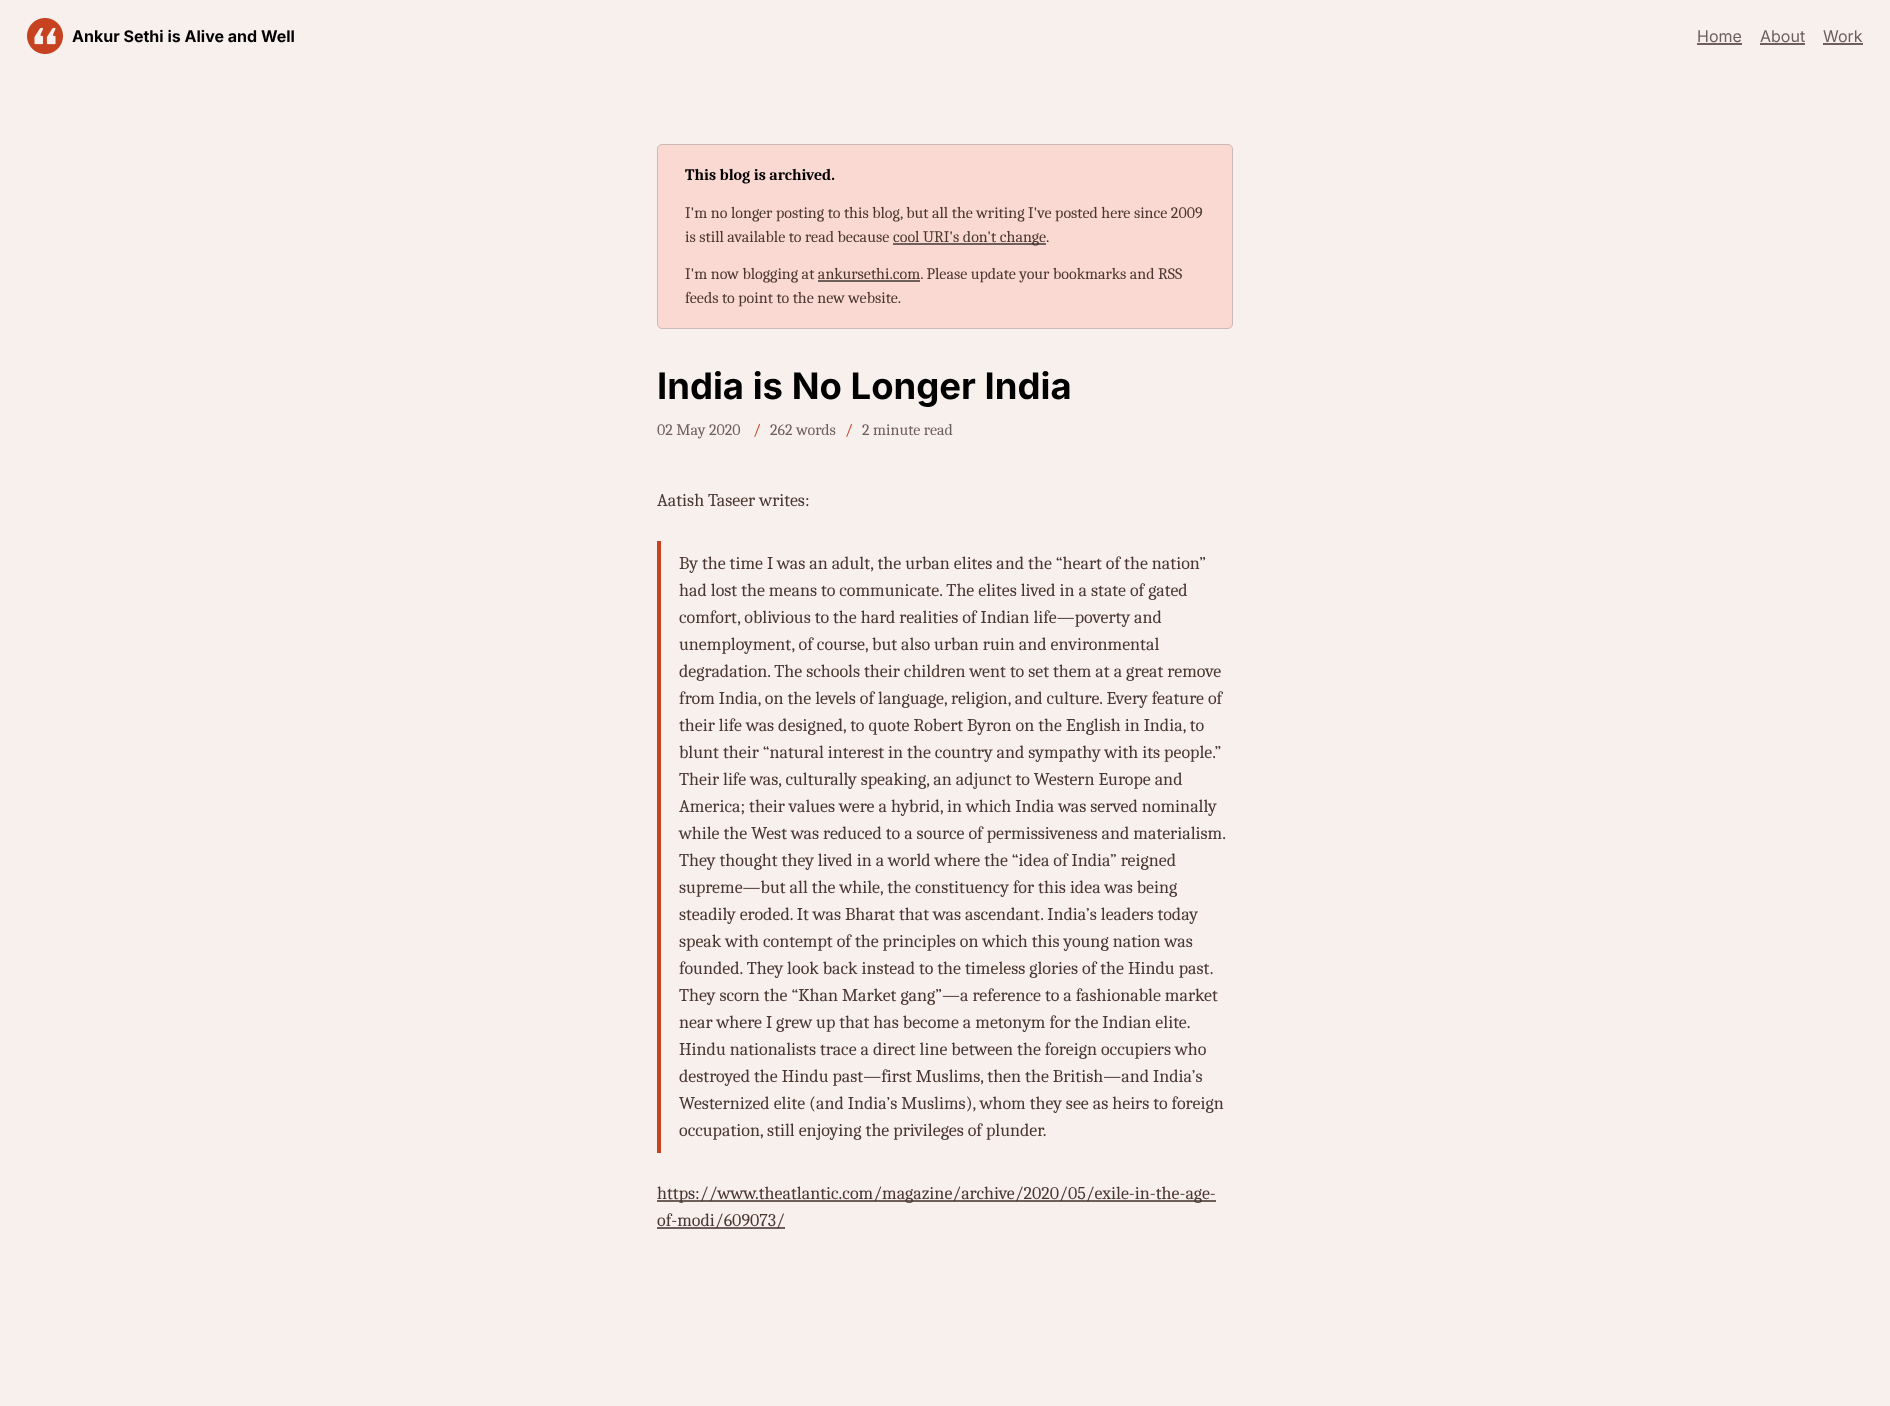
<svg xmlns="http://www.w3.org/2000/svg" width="1890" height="1406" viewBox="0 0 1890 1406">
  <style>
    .t1 { font: bold 16px Inter; fill: #000; }
    .t2 { font: 16px Inter; fill: #6f5f5b; }
    .t3 { font: bold 16px Caladea; fill: #000; }
    .t4 { font: 16px Caladea; fill: #4b3731; }
    .t5 { font: bold 36.5px Inter; fill: #000; }
    .t6 { font: 16px Caladea; fill: #6f5f5b; }
    .t7 { font: 16px Caladea; fill: #c64220; }
    .t8 { font: 18px Caladea; fill: #4b3731; }
  </style>
  <rect width="100%" height="100%" fill="#f8f0ed"/>
  <image x="27" y="18" width="36" height="36" href="images/1.png"/>
  <text x="72" y="42" class="t1">Ankur Sethi is Alive and Well</text>
  <text x="1697" y="42" class="t2">Home</text>
  <rect x="1697" y="43" width="45" height="2" fill="#6f5f5b"/>
  <text x="1760" y="42" class="t2">About</text>
  <rect x="1760" y="43" width="45" height="2" fill="#6f5f5b"/>
  <text x="1823" y="42" class="t2">Work</text>
  <rect x="1823" y="43" width="40" height="2" fill="#6f5f5b"/>
  <rect x="657.5" y="144.5" width="575" height="184" rx="4.5" fill="#f9d9d1" stroke="#cbb9b5"/>
  <text x="685" y="180" class="t3">This blog is archived.</text>
  <text x="685" y="218" class="t4">I'm no longer posting to this blog, but all the writing I've posted here since 2009</text>
  <text x="685" y="242" class="t4">is still available to read because</text>
  <rect x="893" y="243" width="153" height="2" fill="#6f5f5b"/>
  <text x="893" y="242" class="t4">cool URI's don't change.</text>
  <text x="685" y="279" class="t4">I'm now blogging at ankursethi.com. Please update your bookmarks and RSS</text>
  <rect x="818" y="280" width="102" height="2" fill="#6f5f5b"/>
  <text x="685" y="303" class="t4">feeds to point to the new website.</text>
  <text x="657" y="399" class="t5">India is No Longer India</text>
  <text x="657" y="435" class="t6">02 May 2020</text>
  <text x="753" y="435" class="t7">/</text>
  <text x="770" y="435" class="t6">262 words</text>
  <text x="845" y="435" class="t7">/</text>
  <text x="862" y="435" class="t6">2 minute read</text>
  <text x="657" y="506" class="t8">Aatish Taseer writes:</text>
  <rect x="657" y="541" width="4" height="612" fill="#c64220"/>
  <text x="679" y="569" class="t8">By the time I was an adult, the urban elites and the “heart of the nation”</text>
  <text x="679" y="596" class="t8">had lost the means to communicate. The elites lived in a state of gated</text>
  <text x="679" y="623" class="t8">comfort, oblivious to the hard realities of Indian life—poverty and</text>
  <text x="679" y="650" class="t8">unemployment, of course, but also urban ruin and environmental</text>
  <text x="679" y="677" class="t8">degradation. The schools their children went to set them at a great remove</text>
  <text x="679" y="704" class="t8">from India, on the levels of language, religion, and culture. Every feature of</text>
  <text x="679" y="731" class="t8">their life was designed, to quote Robert Byron on the English in India, to</text>
  <text x="679" y="758" class="t8">blunt their “natural interest in the country and sympathy with its people.”</text>
  <text x="679" y="785" class="t8">Their life was, culturally speaking, an adjunct to Western Europe and</text>
  <text x="679" y="812" class="t8">America; their values were a hybrid, in which India was served nominally</text>
  <text x="679" y="839" class="t8">while the West was reduced to a source of permissiveness and materialism.</text>
  <text x="679" y="866" class="t8">They thought they lived in a world where the “idea of India” reigned</text>
  <text x="679" y="893" class="t8">supreme—but all the while, the constituency for this idea was being</text>
  <text x="679" y="920" class="t8">steadily eroded. It was Bharat that was ascendant. India’s leaders today</text>
  <text x="679" y="947" class="t8">speak with contempt of the principles on which this young nation was</text>
  <text x="679" y="974" class="t8">founded. They look back instead to the timeless glories of the Hindu past.</text>
  <text x="679" y="1001" class="t8">They scorn the “Khan Market gang”—a reference to a fashionable market</text>
  <text x="679" y="1028" class="t8">near where I grew up that has become a metonym for the Indian elite.</text>
  <text x="679" y="1055" class="t8">Hindu nationalists trace a direct line between the foreign occupiers who</text>
  <text x="679" y="1082" class="t8">destroyed the Hindu past—first Muslims, then the British—and India’s</text>
  <text x="679" y="1109" class="t8">Westernized elite (and India’s Muslims), whom they see as heirs to foreign</text>
  <text x="679" y="1136" class="t8">occupation, still enjoying the privileges of plunder.</text>
  <rect x="657" y="1200" width="559" height="2" fill="#6f5f5b"/>
  <text x="657" y="1199" class="t8">https://www.theatlantic.com/magazine/archive/2020/05/exile-in-the-age-</text>
  <rect x="657" y="1227" width="128" height="2" fill="#6f5f5b"/>
  <text x="657" y="1226" class="t8">of-modi/609073/</text>
</svg>
